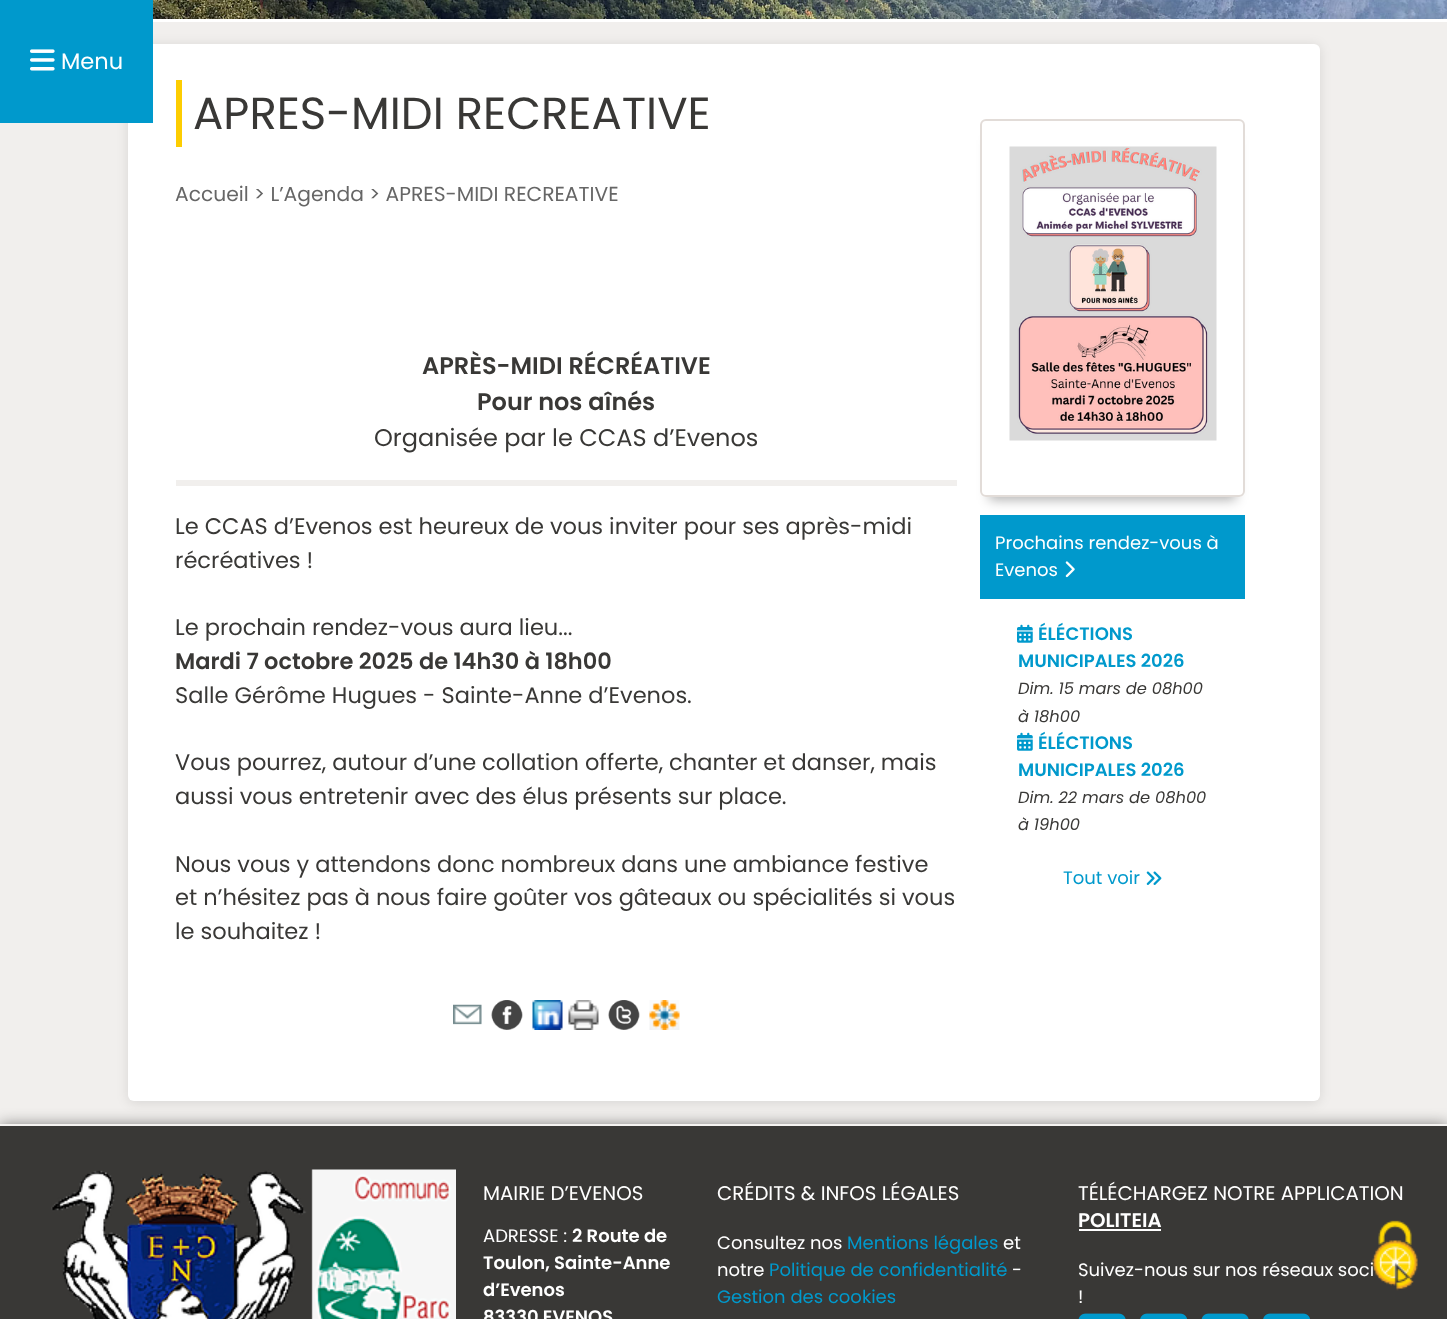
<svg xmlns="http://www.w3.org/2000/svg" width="1447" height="1319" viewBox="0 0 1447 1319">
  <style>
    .t1 { font: 22.5px Poppins; fill: #fff; }
    .t2 { font: 45px Poppins; fill: #393836; }
    .t3 { font: 20.25px Poppins; fill: #666; }
    .t4 { font: 600 24px Poppins; fill: #393836; }
    .t5 { font: 24px Poppins; fill: #393836; }
    .t6 { font: 22.5px Poppins; fill: #393836; }
    .t7 { font: 600 22.5px Poppins; fill: #393836; }
    .t8 { font: 18px Poppins; fill: #fff; }
    .t9 { font: 600 18px Poppins; fill: #09c; }
    .t10 { font: italic 16.25px Poppins; fill: #393836; }
    .t11 { font: 18px Poppins; fill: #09c; }
    .t12 { font: 19.75px Poppins; fill: #fff; }
    .t13 { font: 600 18px Poppins; fill: #fff; }
    .t14 { font: 600 19.75px Poppins; fill: #fff; }
  </style>
  <defs>
    <clipPath id="clip1"><path d="M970 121H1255V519H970ZM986 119H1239C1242.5 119 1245 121.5 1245 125V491C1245 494.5 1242.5 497 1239 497H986C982.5 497 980 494.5 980 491V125C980 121.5 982.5 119 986 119Z" clip-rule="evenodd"/></clipPath>
  </defs>
  <rect width="100%" height="100%" fill="#fff"/>
  <image x="153" y="0" width="1294" height="19" href="images/1.png"/>
  <rect x="0" y="22" width="1447" height="1102" fill="#f1efed"/>
  <rect x="128" y="45" width="1192" height="1058" rx="6" fill="#0000001a" filter="blur(6px)"/>
  <rect x="128" y="44" width="1192" height="1057" rx="6" fill="#fff"/>
  <rect x="0" y="0" width="153" height="123" fill="#09c"/>
  <image x="30" y="49" width="25" height="22" href="images/2.png"/>
  <text x="61" y="69" class="t1">Menu</text>
  <rect x="176" y="80" width="6" height="67" fill="#fdcd01"/>
  <text x="193" y="129" class="t2">APRES-MIDI RECREATIVE</text>
  <text x="175" y="201" class="t3">Accueil &gt; L’Agenda &gt; APRES-MIDI RECREATIVE</text>
  <rect x="176" y="480" width="781" height="6" fill="#f1efed"/>
  <text x="422" y="374" class="t4">APRÈS-MIDI RÉCRÉATIVE</text>
  <text x="477" y="410" class="t4">Pour nos aînés</text>
  <text x="374" y="446" class="t5">Organisée par le CCAS d’Evenos</text>
  <text x="175" y="534" class="t6">Le CCAS d’Evenos est heureux de vous inviter pour ses après-midi</text>
  <text x="175" y="568" class="t6">récréatives !</text>
  <text x="175" y="635" class="t6">Le prochain rendez-vous aura lieu...</text>
  <text x="175" y="669" class="t7">Mardi 7 octobre 2025 de 14h30 à 18h00</text>
  <text x="175" y="703" class="t6">Salle Gérôme Hugues - Sainte-Anne d’Evenos.</text>
  <text x="175" y="770" class="t6">Vous pourrez, autour d’une collation offerte, chanter et danser, mais</text>
  <text x="175" y="804" class="t6">aussi vous entretenir avec des élus présents sur place.</text>
  <text x="175" y="872" class="t6">Nous vous y attendons donc nombreux dans une ambiance festive</text>
  <text x="175" y="905" class="t6">et n’hésitez pas à nous faire goûter vos gâteaux ou spécialités si vous</text>
  <text x="175" y="939" class="t6">le souhaitez !</text>
  <image x="453" y="1004" width="29" height="21" href="images/3.png"/>
  <image x="491" y="1000" width="32" height="30" href="images/4.png"/>
  <image x="532" y="1000" width="31" height="30" href="images/5.png"/>
  <image x="568" y="1000" width="31" height="30" href="images/6.png"/>
  <image x="608" y="1000" width="32" height="30" href="images/7.png"/>
  <image x="649" y="1000" width="31" height="30" href="images/8.png"/>
  <g clip-path="url(#clip1)">
    <rect x="989" y="140" width="247" height="360" fill="#0000004d" filter="blur(6px)"/>
  </g>
  <rect x="981" y="120" width="263" height="376" rx="5" fill="none" stroke="#e2dcd8" stroke-width="2"/>
  <image x="1009" y="146" width="208" height="295" href="images/9.png"/>
  <rect x="980" y="515" width="265" height="84" fill="#09c"/>
  <text x="995" y="549" class="t8">Prochains rendez-vous à</text>
  <text x="995" y="576" class="t8">Evenos</text>
  <image x="1065" y="561" width="10" height="17" href="images/10.png"/>
  <image x="1017" y="624" width="16" height="19" href="images/11.png"/>
  <text x="1038" y="640" class="t9">ÉLÉCTIONS</text>
  <text x="1018" y="667" class="t9">MUNICIPALES 2026</text>
  <text x="1018" y="694" class="t10">Dim. 15 mars de 08h00</text>
  <text x="1018" y="722" class="t10">à 18h00</text>
  <image x="1017" y="732" width="16" height="19" href="images/11.png"/>
  <text x="1038" y="749" class="t9">ÉLÉCTIONS</text>
  <text x="1018" y="776" class="t9">MUNICIPALES 2026</text>
  <text x="1018" y="803" class="t10">Dim. 22 mars de 08h00</text>
  <text x="1018" y="830" class="t10">à 19h00</text>
  <text x="1063" y="884" class="t11">Tout voir</text>
  <image x="1146" y="871" width="16" height="14" href="images/12.png"/>
  <rect x="0" y="1125" width="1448" height="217" fill="#00000080" filter="blur(7.5px)"/>
  <rect x="0" y="1126" width="1447" height="193" fill="#393836"/>
  <rect x="0" y="1124" width="1447" height="2" fill="#f5f3f1"/>
  <image x="51" y="1169" width="405" height="150" href="images/13.png"/>
  <text x="483" y="1200" class="t12">MAIRIE D’EVENOS</text>
  <text x="483" y="1242" class="t8">ADRESSE :</text>
  <text x="572" y="1242" class="t13">2 Route de</text>
  <text x="483" y="1269" class="t13">Toulon, Sainte-Anne</text>
  <text x="483" y="1296" class="t13">d’Evenos</text>
  <text x="483" y="1323" class="t13">83330 EVENOS</text>
  <text x="717" y="1200" class="t12">CRÉDITS &amp; INFOS LÉGALES</text>
  <text x="717" y="1249" class="t8">Consultez nos</text>
  <text x="847" y="1249" class="t11">Mentions légales</text>
  <text x="1003" y="1249" class="t8">et</text>
  <text x="717" y="1276" class="t8">notre</text>
  <text x="769" y="1276" class="t11">Politique de confidentialité</text>
  <text x="1012" y="1276" class="t8">-</text>
  <text x="717" y="1303" class="t11">Gestion des cookies</text>
  <text x="1078" y="1200" class="t12">TÉLÉCHARGEZ NOTRE APPLICATION</text>
  <text x="1078" y="1227" class="t14">POLITEIA</text>
  <rect x="1079" y="1229" width="82" height="2" fill="#fff"/>
  <text x="1078" y="1276" class="t8">Suivez-nous sur nos réseaux soci</text>
  <text x="1078" y="1303" class="t8">!</text>
  <image x="1078" y="1313" width="48" height="6" href="images/14.png"/>
  <image x="1140" y="1313" width="47" height="6" href="images/15.png"/>
  <image x="1201" y="1313" width="48" height="6" href="images/14.png"/>
  <image x="1263" y="1313" width="47" height="6" href="images/15.png"/>
  <image x="1372" y="1220" width="46" height="71" href="images/16.png"/>
</svg>
